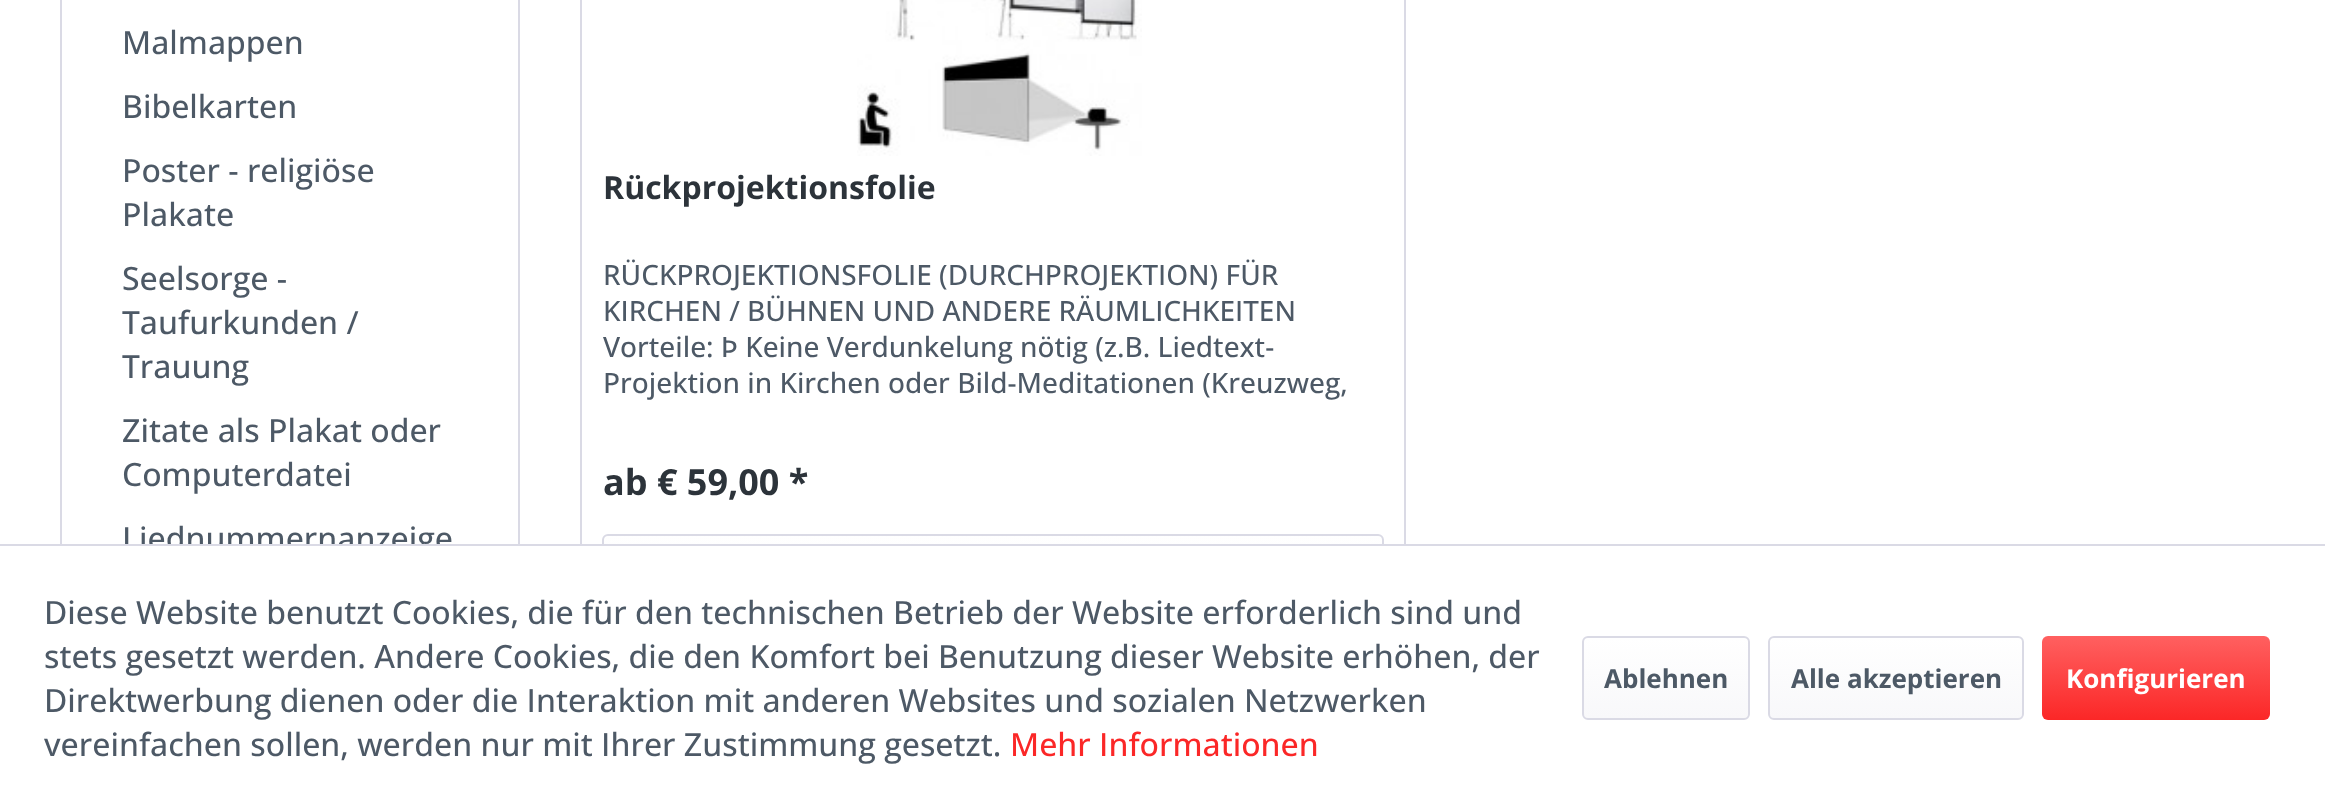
<svg xmlns="http://www.w3.org/2000/svg" width="2325" height="809" viewBox="0 0 2325 809">
  <style>
    .t1 { font: 500 32px Open Sans; fill: #4d5966; }
    .t2 { font: bold 32px Open Sans; fill: #2c333a; }
    .t3 { font: 500 28px Open Sans; fill: #4d5966; }
    .t4 { font: bold 36px Open Sans; fill: #2c333a; }
    .t5 { font: 500 32px Open Sans; fill: #fb2727; }
    .t6 { font: bold 26px Open Sans; fill: #4d5966; }
    .t7 { font: bold 26px Open Sans; fill: #fff; }
  </style>
  <defs>
    <linearGradient id="g1" gradientUnits="userSpaceOnUse" x1="993" y1="536" x2="993" y2="616"><stop offset="0" stop-color="#fff"/><stop offset="1" stop-color="#f8f8fa"/></linearGradient>
    <linearGradient id="g2" gradientUnits="userSpaceOnUse" x1="1666" y1="638" x2="1666" y2="718"><stop offset="0" stop-color="#fff"/><stop offset="1" stop-color="#f8f8fa"/></linearGradient>
    <linearGradient id="g3" gradientUnits="userSpaceOnUse" x1="1896" y1="638" x2="1896" y2="718"><stop offset="0" stop-color="#fff"/><stop offset="1" stop-color="#f8f8fa"/></linearGradient>
    <linearGradient id="g4" gradientUnits="userSpaceOnUse" x1="2156" y1="636" x2="2156" y2="720"><stop offset="0" stop-color="#ff6060"/><stop offset="1" stop-color="#fb2727"/></linearGradient>
  </defs>
  <rect width="100%" height="100%" fill="#fff"/>
  <rect x="61" y="-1" width="458" height="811" fill="none" stroke="#dadae5" stroke-width="2"/>
  <text x="122" y="54" class="t1">Malmappen</text>
  <text x="122" y="118" class="t1">Bibelkarten</text>
  <text x="122" y="182" class="t1">Poster - religiöse</text>
  <text x="122" y="226" class="t1">Plakate</text>
  <text x="122" y="290" class="t1">Seelsorge -</text>
  <text x="122" y="334" class="t1">Taufurkunden /</text>
  <text x="122" y="378" class="t1">Trauung</text>
  <text x="122" y="442" class="t1">Zitate als Plakat oder</text>
  <text x="122" y="486" class="t1">Computerdatei</text>
  <text x="122" y="550" class="t1">Liednummernanzeige</text>
  <rect x="581" y="-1" width="824" height="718" fill="none" stroke="#dadae5" stroke-width="2"/>
  <image x="857" y="0" width="285" height="156" href="images/1.png"/>
  <text x="603" y="199" class="t2">Rückprojektionsfolie</text>
  <text x="603" y="285" class="t3">RÜCKPROJEKTIONSFOLIE (DURCHPROJEKTION) FÜR</text>
  <text x="603" y="321" class="t3">KIRCHEN / BÜHNEN UND ANDERE RÄUMLICHKEITEN</text>
  <text x="603" y="357" class="t3">Vorteile: Þ Keine Verdunkelung nötig (z.B. Liedtext-</text>
  <text x="603" y="393" class="t3">Projektion in Kirchen oder Bild-Meditationen (Kreuzweg,</text>
  <text x="603" y="495" class="t4">ab € 59,00 *</text>
  <rect x="604" y="536" width="778" height="80" rx="4" fill="url(#g1)"/>
  <rect x="603" y="535" width="780" height="82" rx="5" fill="none" stroke="#dadae5" stroke-width="2"/>
  <rect x="60" y="546" width="1346" height="263" fill="#fff"/>
  <rect x="0" y="544" width="2325" height="2" fill="#dadae5"/>
  <text x="44" y="624" class="t1">Diese Website benutzt Cookies, die für den technischen Betrieb der Website erforderlich sind und</text>
  <text x="44" y="668" class="t1">stets gesetzt werden. Andere Cookies, die den Komfort bei Benutzung dieser Website erhöhen, der</text>
  <text x="44" y="712" class="t1">Direktwerbung dienen oder die Interaktion mit anderen Websites und sozialen Netzwerken</text>
  <text x="44" y="756" class="t1">vereinfachen sollen, werden nur mit Ihrer Zustimmung gesetzt.</text>
  <text x="1010" y="756" class="t5">Mehr Informationen</text>
  <rect x="1584" y="638" width="164" height="80" rx="4" fill="url(#g2)"/>
  <rect x="1583" y="637" width="166" height="82" rx="5" fill="none" stroke="#dadae5" stroke-width="2"/>
  <text x="1604" y="688" class="t6">Ablehnen</text>
  <rect x="1770" y="638" width="252" height="80" rx="4" fill="url(#g3)"/>
  <rect x="1769" y="637" width="254" height="82" rx="5" fill="none" stroke="#dadae5" stroke-width="2"/>
  <text x="1791" y="688" class="t6">Alle akzeptieren</text>
  <rect x="2042" y="636" width="228" height="84" rx="6" fill="url(#g4)"/>
  <text x="2066" y="688" class="t7">Konfigurieren</text>
</svg>
